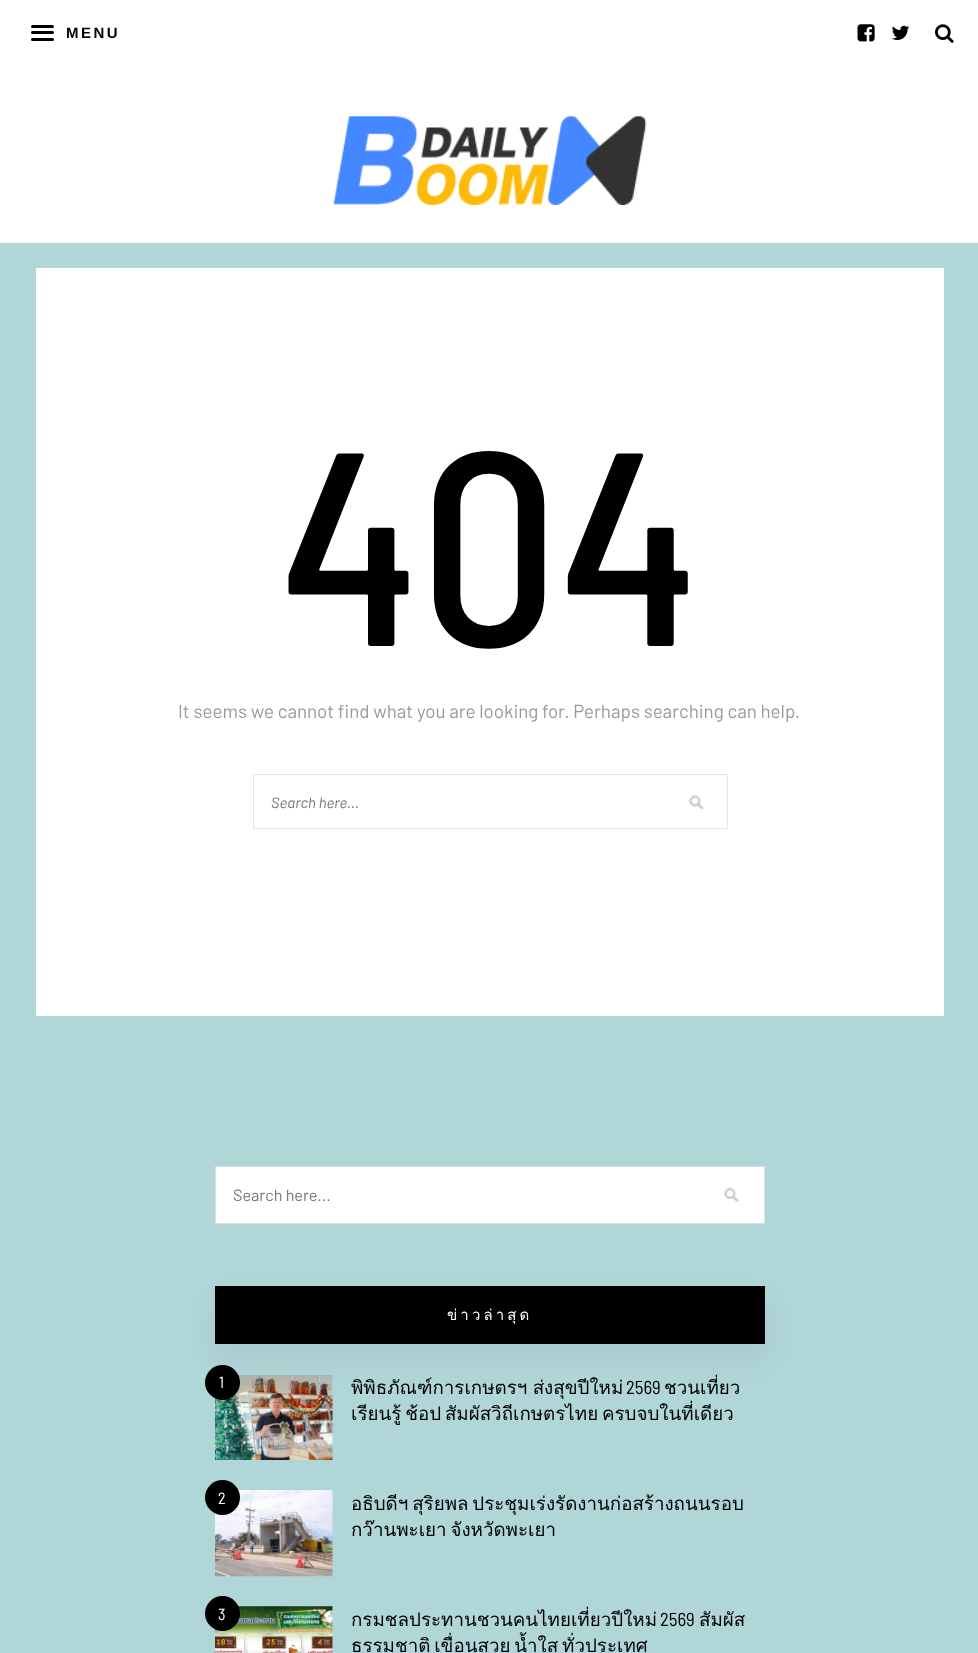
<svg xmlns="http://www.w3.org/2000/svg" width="978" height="1653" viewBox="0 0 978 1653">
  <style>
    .t1 { font: bold 15px Liberation Sans; letter-spacing: 2.5px; fill: #000; }
    .t2 { font: 500 275px Barlow Semi Condensed; letter-spacing: 0.5px; fill: #000; }
    .t3 { font: 18.75px Barlow; fill: #999; }
    .t4 { font: italic 15px Barlow; fill: #757575; }
    .t5 { font: 16.25px Barlow; fill: #757575; }
    .t6 { font: 15px Loma; letter-spacing: 3.1px; fill: #fff; }
    .t7 { font: 16.25px Barlow Semi Condensed; fill: #fff; }
    .t8 { font: 18.75px Loma; fill: #000; }
    .t9 { font: 18.75px Barlow Semi Condensed; fill: #000; }
  </style>
  <defs>
    <clipPath id="clip1"><rect x="351" y="1375" width="414" height="60"/></clipPath>
  </defs>
  <rect width="100%" height="100%" fill="#b1d6d8"/>
  <rect x="0" y="0" width="978" height="243" fill="#fff"/>
  <image x="333" y="116" width="314" height="89" href="images/1.png"/>
  <rect x="31" y="25" width="23" height="3" rx="1.5" fill="#000"/>
  <rect x="31" y="31" width="23" height="3" rx="1.5" fill="#000"/>
  <rect x="31" y="38" width="23" height="3" rx="1.5" fill="#000"/>
  <text x="66" y="38" class="t1">MENU</text>
  <image x="857" y="24" width="18" height="18" href="images/2.png"/>
  <image x="892" y="25" width="18" height="15" href="images/3.png"/>
  <image x="935" y="24" width="19" height="19" href="images/4.png"/>
  <rect x="36" y="268" width="908" height="748" fill="#fff"/>
  <text x="280" y="646" class="t2">404</text>
  <text x="178" y="718" class="t3">It seems we cannot find what you are looking for. Perhaps searching can help.</text>
  <image x="688" y="795" width="16" height="15" href="images/5.png"/>
  <rect x="253.5" y="774.5" width="474" height="54" fill="none" stroke="#e5e5e5"/>
  <text x="271" y="808" class="t4">Search here...</text>
  <rect x="216" y="1167" width="548" height="56" fill="#fff"/>
  <image x="723" y="1187" width="16" height="16" href="images/6.png"/>
  <rect x="215.5" y="1166.5" width="549" height="57" fill="none" stroke="#ddd"/>
  <text x="233" y="1201" class="t5">Search here...</text>
  <rect x="215" y="1301" width="550" height="58" fill="#0000000d" filter="blur(15px)"/>
  <rect x="215" y="1286" width="550" height="58" fill="#000"/>
  <text x="447" y="1320" class="t6">ข่าวล่าสุด</text>
  <image x="215" y="1375" width="118" height="85" href="images/7.png"/>
  <circle cx="222.5" cy="1382.5" r="17.5" fill="#000"/>
  <text x="219" y="1388" class="t7">1</text>
  <g clip-path="url(#clip1)">
    <text x="351" y="1394" word-spacing="-1" class="t8">พิพิธภัณฑ์การเกษตรฯ ส่งสุขปีใหม่</text>
  </g>
  <text x="626" y="1394" class="t9">2569</text>
  <text x="664" y="1394" class="t8">ชวนเที่ยว</text>
  <g clip-path="url(#clip1)">
    <text x="351" y="1420" word-spacing="-2.5" class="t8">เรียนรู้ ช้อป สัมผัสวิถีเกษตรไทย ครบจบในที่เดียว</text>
  </g>
  <image x="215" y="1490" width="118" height="87" href="images/8.png"/>
  <circle cx="222.5" cy="1497.5" r="17.5" fill="#000"/>
  <text x="218" y="1504" class="t7">2</text>
  <text x="351" y="1510" word-spacing="-2.5" class="t8">อธิบดีฯ สุริยพล ประชุมเร่งรัดงานก่อสร้างถนนรอบ</text>
  <text x="351" y="1536" word-spacing="-2.5" class="t8">กว๊านพะเยา จังหวัดพะเยา</text>
  <image x="215" y="1606" width="118" height="47" href="images/9.png"/>
  <circle cx="222.5" cy="1613.5" r="17.5" fill="#000"/>
  <text x="218" y="1620" class="t7">3</text>
  <text x="351" y="1626" class="t8">กรมชลประทานชวนคนไทยเที่ยวปีใหม่</text>
  <text x="660" y="1626" class="t9">2569</text>
  <text x="699" y="1626" class="t8">สัมผัส</text>
  <text x="351" y="1652" word-spacing="-2.5" class="t8">ธรรมชาติ เขื่อนสวย น้ำใส ทั่วประเทศ</text>
</svg>
